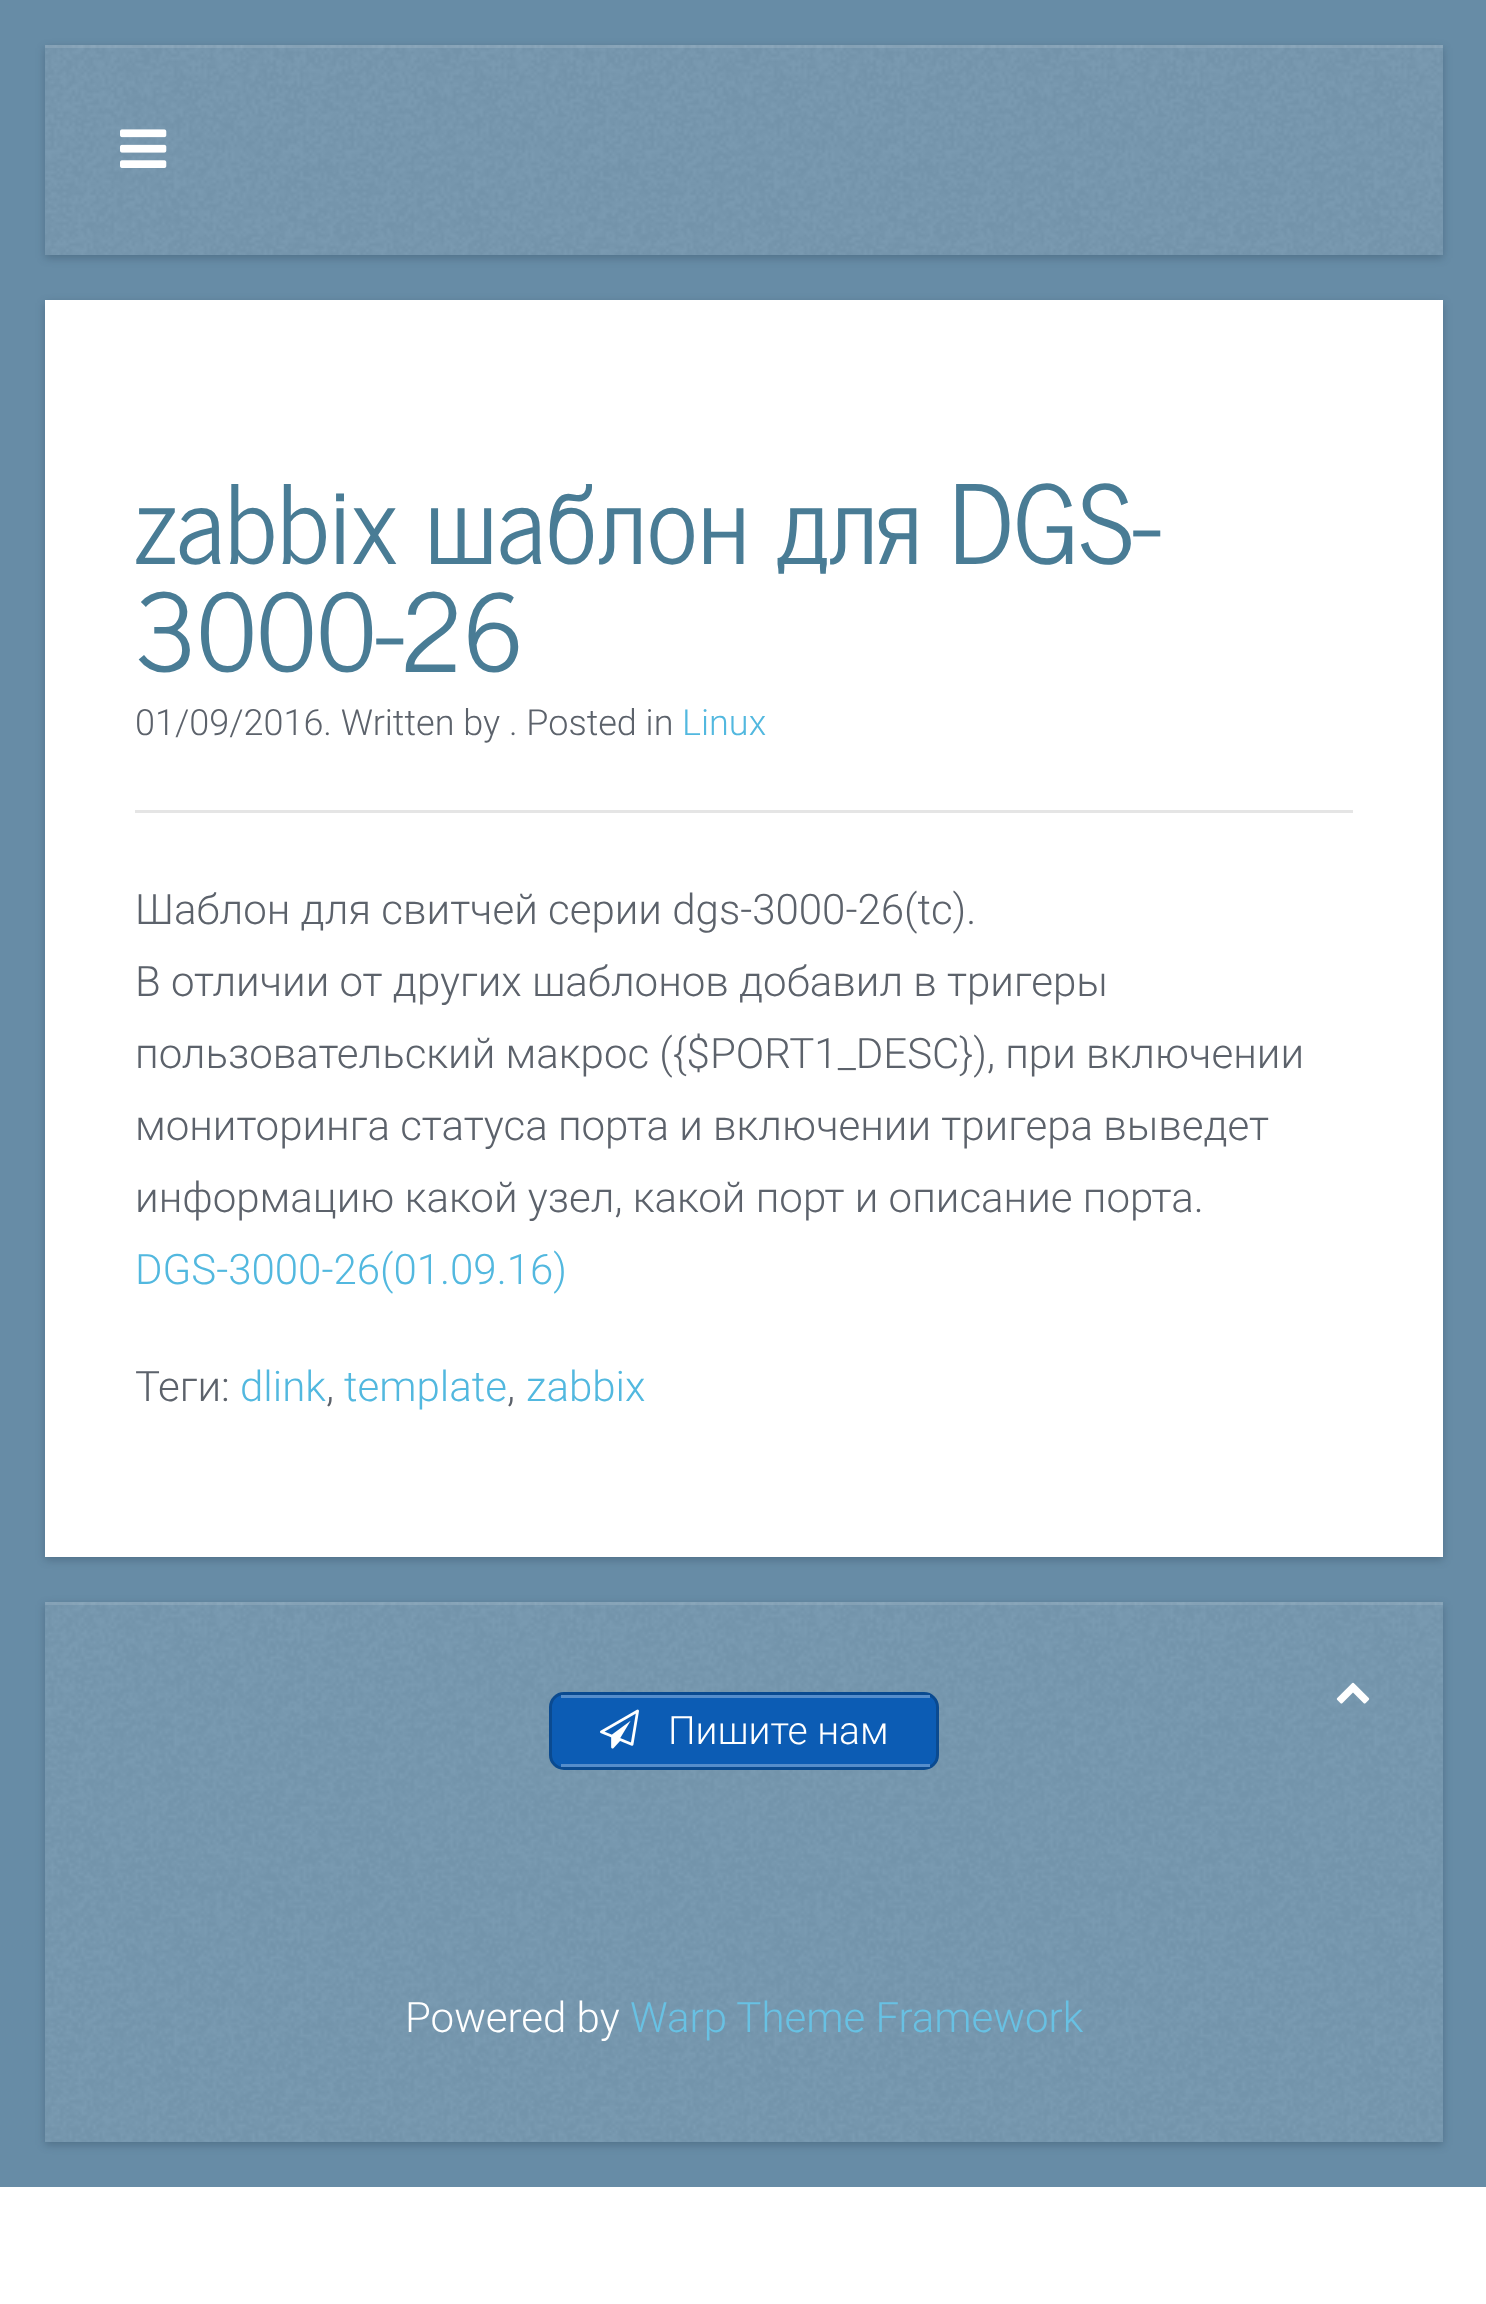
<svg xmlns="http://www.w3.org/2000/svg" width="1486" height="2304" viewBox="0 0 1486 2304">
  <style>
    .t1 { font: 108px News Cycle; fill: #497c95; }
    .t2 { font: 300 36px Roboto; fill: #5c626b; }
    .t3 { font: 300 36px Roboto; fill: #52b8df; }
    .t4 { font: 300 42px Roboto; fill: #5c626b; }
    .t5 { font: 300 42px Roboto; fill: #52b8df; }
    .t6 { font: 300 39px Roboto; fill: #fff; }
    .t7 { font: 300 42px Roboto; fill: #fff; }
    .t8 { font: 300 42px Roboto; fill: #68c1e3; }
  </style>
  <rect width="100%" height="100%" fill="#fff"/>
  <rect x="0" y="0" width="1486" height="2187" fill="#678ca6"/>
  <rect x="45" y="48" width="1398" height="210" fill="#1e32464d" filter="blur(4.5px)"/>
  <rect x="45" y="45" width="1398" height="210" fill="#7798af"/>
  <image x="45" y="45" width="1398" height="210" href="images/1.png"/>
  <rect x="45" y="45" width="1398" height="3" fill="#ffffff1f"/>
  <image x="120" y="129" width="47" height="39" href="images/2.png"/>
  <rect x="45" y="303" width="1398" height="1257" fill="#1e32464d" filter="blur(4.5px)"/>
  <rect x="45" y="300" width="1398" height="1257" fill="#fff"/>
  <text x="135" y="564" class="t1">zabbix шаблон для DGS-</text>
  <text x="135" y="672" class="t1">3000-26</text>
  <text x="135" y="735" class="t2">01/09/2016. Written by . Posted in</text>
  <text x="682" y="735" class="t3">Linux</text>
  <rect x="135" y="810" width="1218" height="3" fill="#e5e5e5"/>
  <text x="135" y="924" class="t4">Шаблон для свитчей серии dgs-3000-26(tc).</text>
  <text x="135" y="996" class="t4">В отличии от других шаблонов добавил в тригеры</text>
  <text x="135" y="1068" class="t4">пользовательский макрос ({$PORT1_DESC}), при включении</text>
  <text x="135" y="1140" class="t4">мониторинга статуса порта и включении тригера выведет</text>
  <text x="135" y="1212" class="t4">информацию какой узел, какой порт и описание порта.</text>
  <text x="135" y="1284" class="t5">DGS-3000-26(01.09.16)</text>
  <text x="135" y="1401" class="t4">Теги:</text>
  <text x="240" y="1401" class="t5">dlink</text>
  <text x="326" y="1401" class="t4">,</text>
  <text x="344" y="1401" class="t5">template</text>
  <text x="507" y="1401" class="t4">,</text>
  <text x="526" y="1401" class="t5">zabbix</text>
  <rect x="45" y="1605" width="1398" height="540" fill="#1e32464d" filter="blur(4.5px)"/>
  <rect x="45" y="1602" width="1398" height="540" fill="#7799b0"/>
  <image x="45" y="1602" width="1398" height="540" href="images/3.png"/>
  <rect x="45" y="1602" width="1398" height="3" fill="#ffffff1f"/>
  <image x="1336" y="1682" width="34" height="22" href="images/4.png"/>
  <rect x="550.5" y="1693.5" width="387" height="75" rx="13.5" fill="#0c5cb4" stroke="#0a4a90" stroke-width="3"/>
  <rect x="561" y="1695" width="369" height="3" fill="#558dcb"/>
  <rect x="561" y="1764" width="369" height="3" fill="#558dcb"/>
  <image x="600" y="1709" width="39" height="40" href="images/5.png"/>
  <text x="668" y="1744" class="t6">Пишите нам</text>
  <text x="405" y="2032" class="t7">Powered by</text>
  <text x="630" y="2032" class="t8">Warp Theme Framework</text>
</svg>
